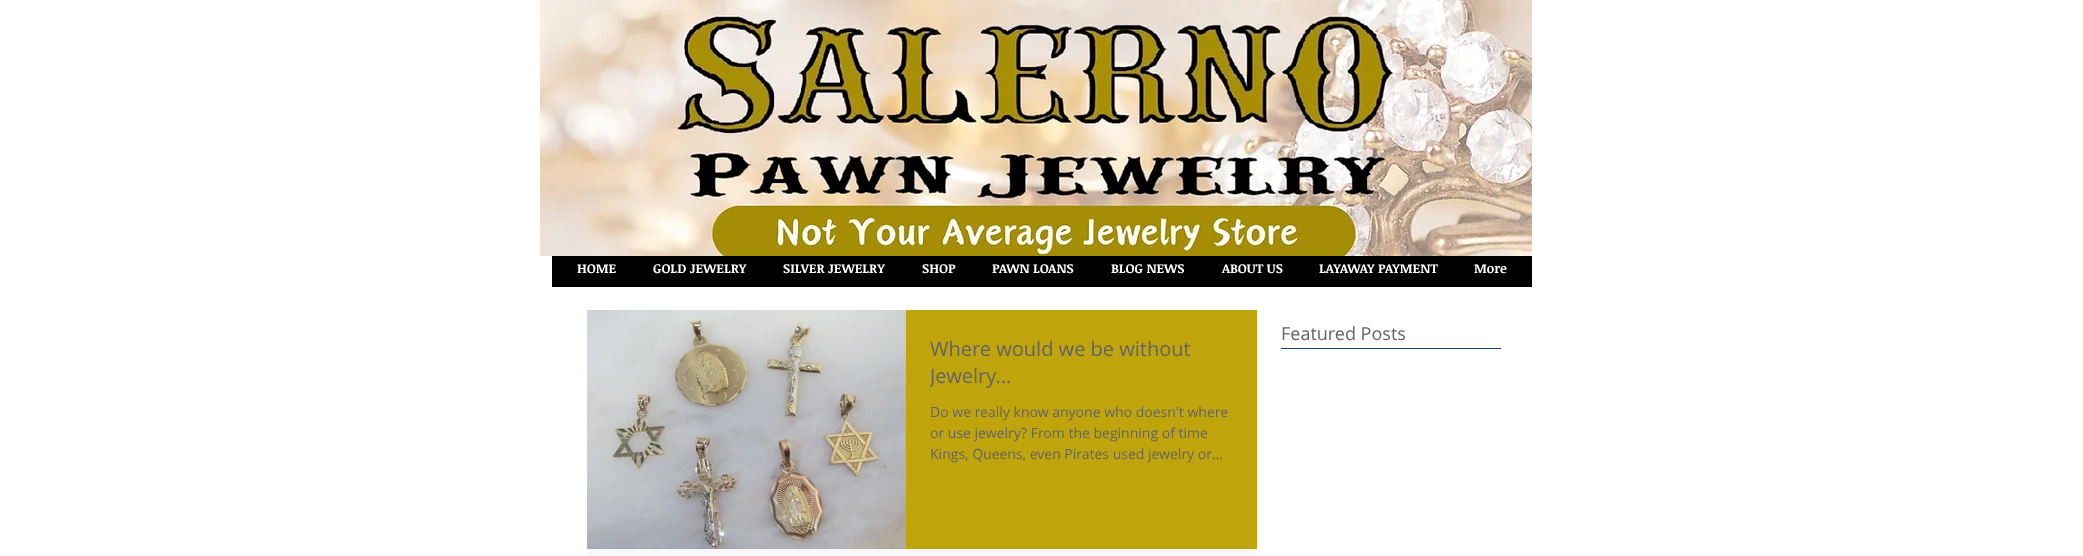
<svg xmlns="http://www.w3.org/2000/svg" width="2083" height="556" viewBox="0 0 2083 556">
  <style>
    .t1 { font: bold 13px Noticia Text; fill: #fff; }
    .t2 { font: 18px Open Sans; fill: #636363; }
    .t3 { font: 20px Open Sans; fill: #636363; }
    .t4 { font: 14px Open Sans; fill: #636363; }
  </style>
  <defs>
    <clipPath id="clip1"><rect x="930" y="335" width="303" height="54"/></clipPath>
  </defs>
  <rect width="100%" height="100%" fill="#fff"/>
  <rect x="552" y="256" width="980" height="31" fill="#000"/>
  <image x="540" y="0" width="992" height="256" href="images/1.png"/>
  <text x="577" y="273" class="t1">HOME</text>
  <text x="653" y="273" class="t1">GOLD JEWELRY</text>
  <text x="783" y="273" class="t1">SILVER JEWELRY</text>
  <text x="922" y="273" class="t1">SHOP</text>
  <text x="992" y="273" class="t1">PAWN LOANS</text>
  <text x="1111" y="273" class="t1">BLOG NEWS</text>
  <text x="1222" y="273" class="t1">ABOUT US</text>
  <text x="1319" y="273" class="t1">LAYAWAY PAYMENT</text>
  <text x="1474" y="273" class="t1">More</text>
  <text x="1281" y="340" class="t2">Featured Posts</text>
  <rect x="587" y="549" width="670" height="7" fill="#f8f8f8"/>
  <image x="587" y="310" width="319" height="239" href="images/2.png"/>
  <rect x="906" y="310" width="351" height="239" fill="#c0a40c"/>
  <text x="930" y="356" class="t3">Where would we be without</text>
  <g clip-path="url(#clip1)">
    <text x="930" y="383" class="t3">Jewelry...</text>
  </g>
  <text x="930" y="417" class="t4">Do we really know anyone who doesn't where</text>
  <text x="930" y="438" class="t4">or use jewelry? From the beginning of time</text>
  <text x="930" y="459" class="t4">Kings, Queens, even Pirates used jewelry or…</text>
  <rect x="1281" y="348" width="220" height="1" fill="#1d4379"/>
</svg>
